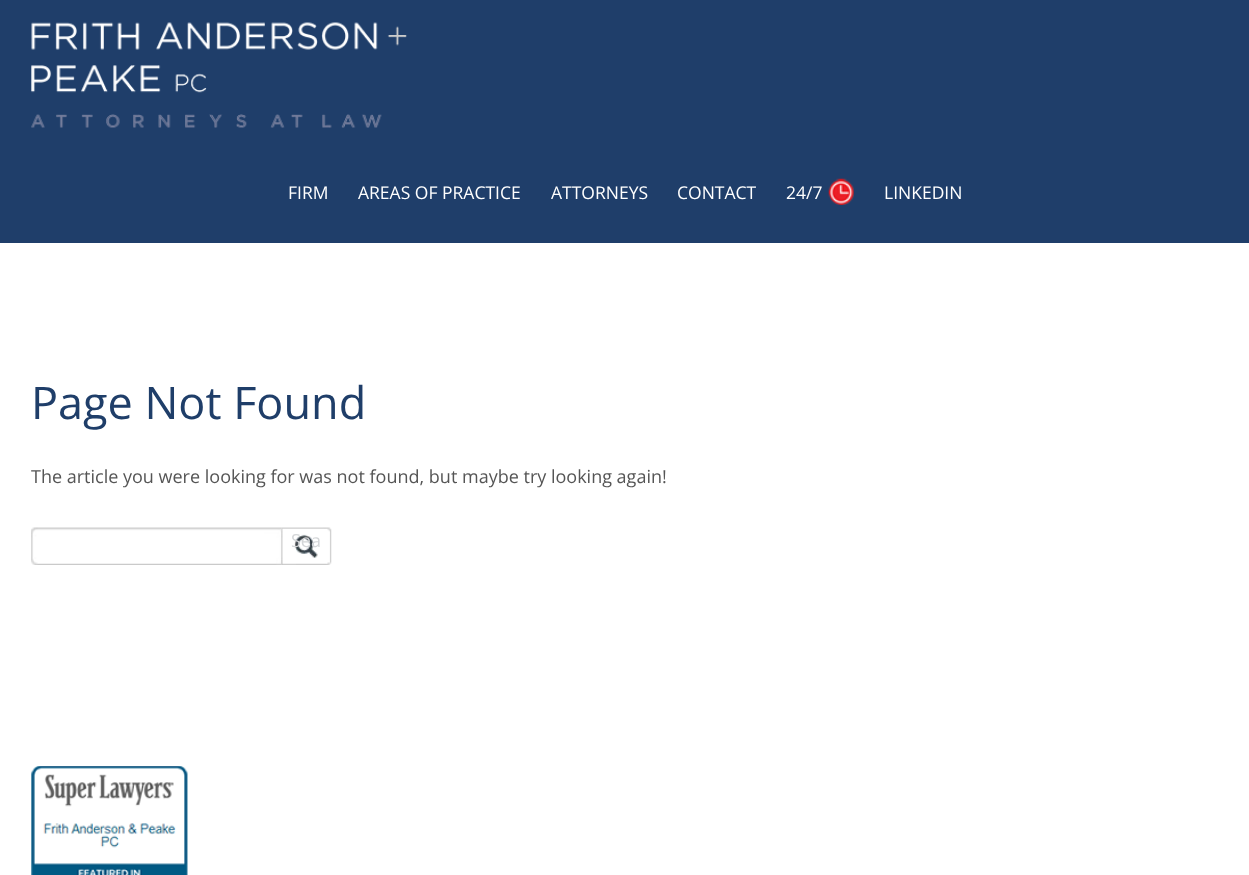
<svg xmlns="http://www.w3.org/2000/svg" width="1249" height="875" viewBox="0 0 1249 875">
  <style>
    .t1 { font: 17.5px Open Sans; fill: #fff; }
    .t2 { font: 45px Open Sans; fill: #1f3e69; }
    .t3 { font: 18px Open Sans; fill: #555; }
    .t4 { font: 18px Open Sans; fill: #d4d6d8; }
  </style>
  <rect width="100%" height="100%" fill="#fff"/>
  <rect x="0" y="0" width="1249" height="243" fill="#1f3e6a"/>
  <image x="31" y="22" width="376" height="106" href="images/1.png"/>
  <text x="288" y="199" class="t1">FIRM</text>
  <text x="358" y="199" class="t1">AREAS OF PRACTICE</text>
  <text x="551" y="199" class="t1">ATTORNEYS</text>
  <text x="677" y="199" class="t1">CONTACT</text>
  <image x="828" y="178" width="26" height="27" href="images/2.png"/>
  <text x="786" y="199" class="t1">24/7</text>
  <text x="884" y="199" class="t1">LINKEDIN</text>
  <text x="31" y="419" class="t2">Page Not Found</text>
  <text x="31" y="483" class="t3">The article you were looking for was not found, but maybe try looking again!</text>
  <image x="31" y="527" width="251" height="38" href="images/3.png"/>
  <image x="281" y="527" width="51" height="38" href="images/4.png"/>
  <text x="291" y="547" class="t4">Sea</text>
  <image x="31" y="766" width="157" height="109" href="images/5.png"/>
</svg>
